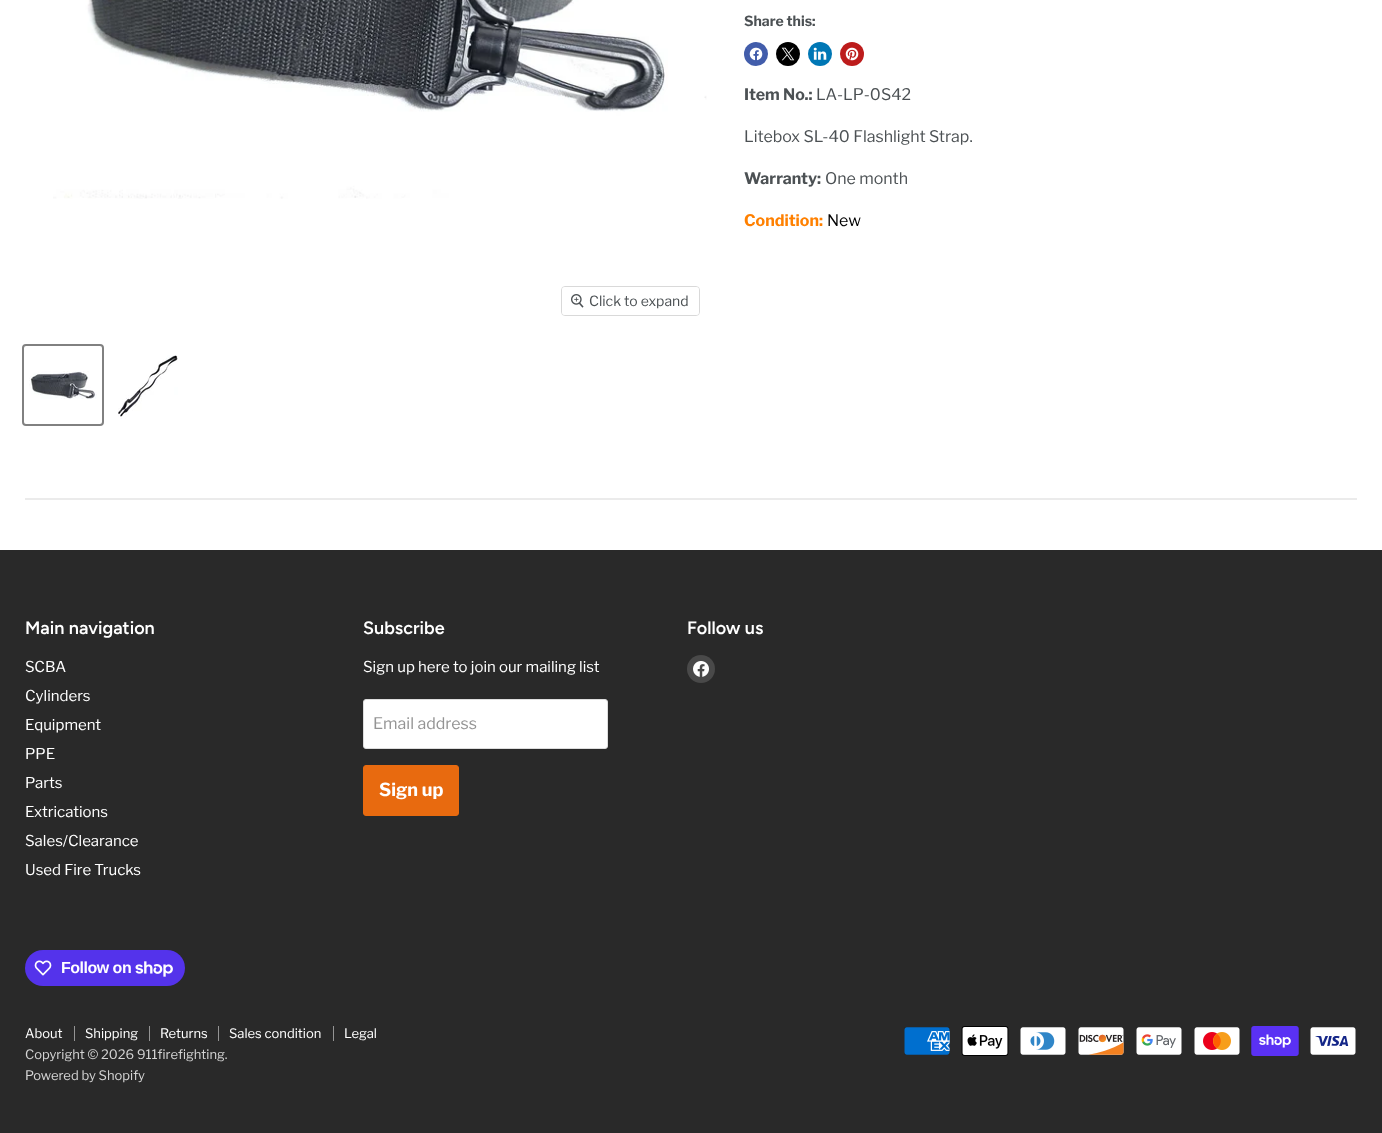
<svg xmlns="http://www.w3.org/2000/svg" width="1382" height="1133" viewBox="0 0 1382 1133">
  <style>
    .t1 { font: bold 14px Libre Franklin; fill: #4c5154; }
    .t2 { font: bold 16px Libre Franklin; fill: #4c5154; }
    .t3 { font: 16px Libre Franklin; fill: #4c5154; }
    .t4 { font: bold 16px Libre Franklin; fill: #ff8000; }
    .t5 { font: 16px Libre Franklin; fill: #000; }
    .t6 { font: 14px Libre Franklin; fill: #4c5154; }
    .t7 { font: 600 18px Figtree; fill: #fff; }
    .t8 { font: 15px Libre Franklin; fill: #fff; }
    .t9 { font: 16px Libre Franklin; fill: #949494; }
    .t10 { font: bold 18px Libre Franklin; fill: #fff; }
    .t11 { font: bold 16px Liberation Sans; letter-spacing: -0.5px; fill: #fff; }
    .t12 { font: 13px Libre Franklin; fill: #fff; }
    .t13 { font: 13px Libre Franklin; fill: #d4d4d4; }
  </style>
  <rect width="100%" height="100%" fill="#fff"/>
  <text x="744" y="26" class="t1">Share this:</text>
  <circle cx="756" cy="54" r="12" fill="#425dab"/>
  <image x="749" y="47" width="14" height="14" href="images/1.png"/>
  <circle cx="788" cy="54" r="12" fill="#000"/>
  <image x="781" y="47" width="14" height="14" href="images/2.png"/>
  <circle cx="820" cy="54" r="12" fill="#0077b5"/>
  <image x="813" y="47" width="14" height="13" href="images/3.png"/>
  <circle cx="852" cy="54" r="12" fill="#bd1c1c"/>
  <image x="845" y="47" width="14" height="14" href="images/4.png"/>
  <text x="744" y="100" class="t2">Item No.:</text>
  <text x="816" y="100" class="t3">LA-LP-0S42</text>
  <text x="744" y="142" class="t3">Litebox SL-40 Flashlight Strap.</text>
  <text x="744" y="184" class="t2">Warranty:</text>
  <text x="825" y="184" class="t3">One month</text>
  <text x="744" y="226" class="t4">Condition:</text>
  <text x="827" y="226" class="t5">New</text>
  <image x="53" y="0" width="654" height="199" href="images/5.png"/>
  <rect x="561.5" y="286.5" width="138" height="29" rx="3.5" fill="none" stroke="#d9d9d9"/>
  <rect x="562" y="287" width="137" height="28" rx="3" fill="#ffffffe6"/>
  <image x="571" y="294" width="13" height="14" href="images/6.png"/>
  <text x="589" y="306" class="t6">Click to expand</text>
  <rect x="23" y="345" width="80" height="80" rx="3" fill="none" stroke="#818181" stroke-width="2"/>
  <image x="29" y="371" width="68" height="28" href="images/7.png"/>
  <image x="118" y="355" width="60" height="64" href="images/8.png"/>
  <rect x="25" y="498" width="1332" height="2" fill="#ebebeb"/>
  <rect x="0" y="550" width="1382" height="583" fill="#292929"/>
  <text x="25" y="634" class="t7">Main navigation</text>
  <text x="25" y="672" class="t8">SCBA</text>
  <text x="25" y="701" class="t8">Cylinders</text>
  <text x="25" y="730" class="t8">Equipment</text>
  <text x="25" y="759" class="t8">PPE</text>
  <text x="25" y="788" class="t8">Parts</text>
  <text x="25" y="817" class="t8">Extrications</text>
  <text x="25" y="846" class="t8">Sales/Clearance</text>
  <text x="25" y="875" class="t8">Used Fire Trucks</text>
  <text x="363" y="634" class="t7">Subscribe</text>
  <text x="363" y="672" class="t8">Sign up here to join our mailing list</text>
  <rect x="363.5" y="699.5" width="244" height="49" rx="2.5" fill="#fff" stroke="#ddd"/>
  <text x="373" y="729" class="t9">Email address</text>
  <rect x="363.5" y="765.5" width="95" height="50" rx="2.5" fill="#e86a0f" stroke="#e86a0f"/>
  <text x="379" y="796" class="t10">Sign up</text>
  <text x="687" y="634" class="t7">Follow us</text>
  <circle cx="701" cy="669" r="14" fill="#494949"/>
  <image x="693" y="661" width="16" height="16" href="images/9.png"/>
  <rect x="25" y="950" width="160" height="36" rx="18" fill="#5433eb"/>
  <image x="34" y="960" width="18" height="16" href="images/10.png"/>
  <text x="61" y="973" class="t11">Follow on</text>
  <image x="135" y="961" width="38" height="16" href="images/11.png"/>
  <rect x="74" y="1026" width="1" height="15" fill="#949494"/>
  <text x="25" y="1038" class="t12">About</text>
  <rect x="149" y="1026" width="1" height="15" fill="#949494"/>
  <text x="85" y="1038" class="t12">Shipping</text>
  <rect x="218" y="1026" width="1" height="15" fill="#949494"/>
  <text x="160" y="1038" class="t12">Returns</text>
  <rect x="333" y="1026" width="1" height="15" fill="#949494"/>
  <text x="229" y="1038" class="t12">Sales condition</text>
  <text x="344" y="1038" class="t12">Legal</text>
  <text x="25" y="1059" class="t13">Copyright © 2026 911firefighting.</text>
  <text x="25" y="1080" class="t13">Powered by Shopify</text>
  <image x="904" y="1027" width="46" height="28" href="images/12.png"/>
  <image x="961" y="1026" width="48" height="30" href="images/13.png"/>
  <image x="1020" y="1027" width="46" height="28" href="images/14.png"/>
  <image x="1078" y="1027" width="46" height="28" href="images/15.png"/>
  <image x="1136" y="1027" width="46" height="28" href="images/16.png"/>
  <image x="1194" y="1027" width="46" height="28" href="images/17.png"/>
  <image x="1251" y="1026" width="48" height="30" href="images/18.png"/>
  <image x="1310" y="1027" width="46" height="28" href="images/19.png"/>
</svg>
